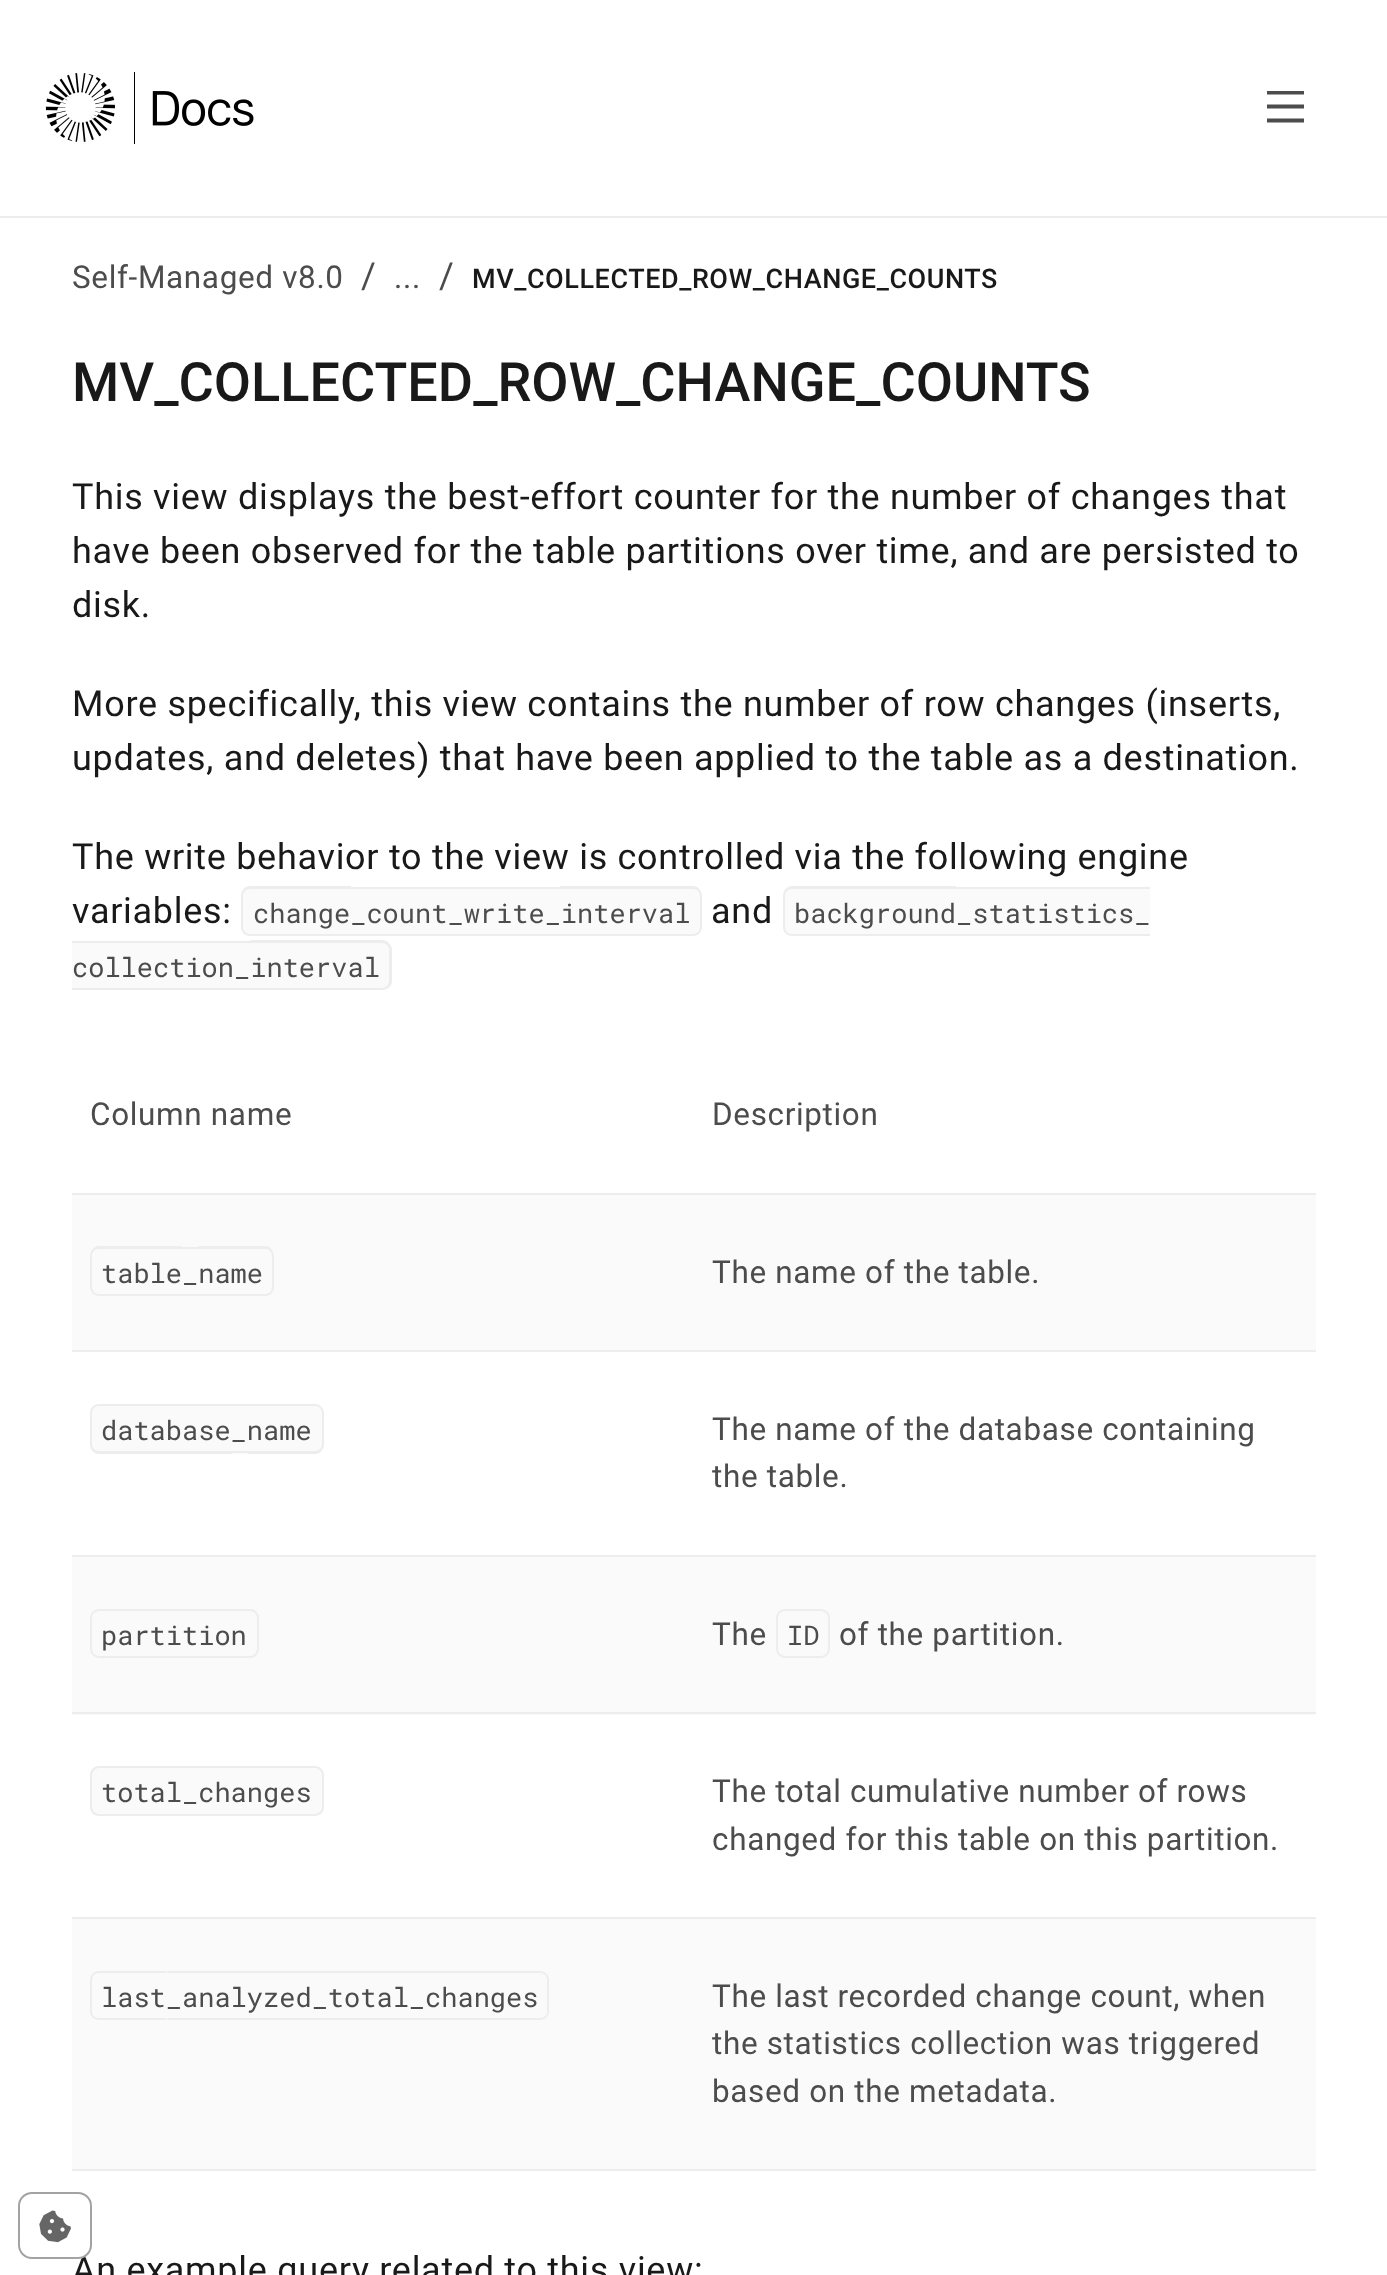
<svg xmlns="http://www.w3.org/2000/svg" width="1387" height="2275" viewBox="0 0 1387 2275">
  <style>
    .t1 { font: 36px Roboto; letter-spacing: 0.72px; fill: #191919; }
    .t2 { font: 31.5px Roboto; letter-spacing: 0.65px; fill: #4c4c4c; }
    .t3 { font: 36px Roboto; fill: #4c4c4c; }
    .t4 { font: 500 27px Roboto; letter-spacing: 0.55px; fill: #191919; }
    .t5 { font: 500 54px Roboto; fill: #191919; }
    .t6 { font: 27px Roboto Mono; fill: #4c4c4c; }
  </style>
  <rect width="100%" height="100%" fill="#fff"/>
  <rect x="0" y="216" width="1387" height="2" fill="#ededed"/>
  <image x="45" y="72" width="209" height="72" href="images/1.png"/>
  <path d="M1267 91H1304V94.5H1267ZM1267 104.5H1304V108.5H1267ZM1304 118.5V122.5H1267V118.5Z" fill="#4c4c4c"/>
  <text x="72" y="2282" class="t1">An example query related to this view:</text>
  <rect x="19" y="2193" width="72" height="65" rx="13" fill="#fff" stroke="#a3a3a3" stroke-width="2"/>
  <image x="39" y="2210" width="32" height="33" href="images/2.png"/>
  <text x="72" y="288" class="t2">Self-Managed v8.0</text>
  <text x="361" y="288" class="t3">/</text>
  <text x="394" y="288" class="t2">...</text>
  <text x="439" y="288" class="t3">/</text>
  <text x="472" y="288" class="t4">MV_COLLECTED_ROW_CHANGE_COUNTS</text>
  <text x="72" y="401" class="t5">MV_COLLECTED_ROW_CHANGE_COUNTS</text>
  <text x="72" y="509" class="t1">This view displays the best-effort counter for the number of changes that</text>
  <text x="72" y="563" class="t1">have been observed for the table partitions over time, and are persisted to</text>
  <text x="72" y="617" class="t1">disk.</text>
  <text x="72" y="716" class="t1">More specifically, this view contains the number of row changes (inserts,</text>
  <text x="72" y="770" class="t1">updates, and deletes) that have been applied to the table as a destination.</text>
  <text x="72" y="869" class="t1">The write behavior to the view is controlled via the following engine</text>
  <text x="72" y="923" class="t1">variables:</text>
  <path d="M250 887H351V936H250C245 936 241 932 241 927V896C241 891 245 887 250 887Z" fill="#fafafa"/>
  <path d="M250 886H351V936H250C245 936 241 932 241 927V896C241 891 245 886 250 886ZM250 889H351V934H250C246 934 243 931 243 927V896C243 892 246 889 250 889Z" fill="#ededed" fill-rule="evenodd"/>
  <rect x="351" y="889" width="209" height="45" fill="#fafafa"/>
  <path d="M560 887H693C698 887 702 891 702 896V927C702 932 698 936 693 936H560Z" fill="#fafafa"/>
  <path d="M560 886H693C698 886 702 891 702 896V927C702 932 698 936 693 936H560ZM560 889H693C697 889 700 892 700 896V927C700 931 697 934 693 934H560Z" fill="#ededed" fill-rule="evenodd"/>
  <text x="253" y="923" class="t6">change_count_write_interval</text>
  <rect x="351" y="887" width="209" height="2" fill="#ededed"/>
  <rect x="351" y="934" width="209" height="2" fill="#ededed"/>
  <text x="711" y="923" class="t1">and</text>
  <path d="M792 887H956V936H792C787 936 783 932 783 927V896C783 891 787 887 792 887Z" fill="#fafafa"/>
  <path d="M792 886H956V936H792C787 936 783 932 783 927V896C783 891 787 886 792 886ZM792 889H956V934H792C788 934 785 931 785 927V896C785 892 788 889 792 889Z" fill="#ededed" fill-rule="evenodd"/>
  <rect x="956" y="889" width="194" height="45" fill="#fafafa"/>
  <text x="794" y="923" class="t6">background_statistics_</text>
  <rect x="956" y="887" width="194" height="2" fill="#ededed"/>
  <rect x="956" y="934" width="194" height="2" fill="#ededed"/>
  <rect x="72" y="943" width="178" height="45" fill="#fafafa"/>
  <path d="M250 941H383C388 941 392 945 392 950V981C392 986 388 990 383 990H250Z" fill="#fafafa"/>
  <path d="M250 940H382C387 940 392 945 392 950V981C392 986 387 990 382 990H250ZM250 943H382C386 943 389 946 389 950V981C389 985 386 988 382 988H250Z" fill="#ededed" fill-rule="evenodd"/>
  <text x="72" y="977" class="t6">collection_interval</text>
  <rect x="72" y="941" width="178" height="2" fill="#ededed"/>
  <rect x="72" y="988" width="178" height="2" fill="#ededed"/>
  <rect x="72" y="1193" width="1244" height="2" fill="#ededed"/>
  <text x="90" y="1125" class="t2">Column name</text>
  <text x="712" y="1125" class="t2">Description</text>
  <rect x="72" y="1195" width="1244" height="155" fill="#fafafa"/>
  <rect x="72" y="1350" width="1244" height="2" fill="#ededed"/>
  <path d="M99 1246H182V1296H99C94 1296 90 1292 90 1287V1256C90 1251 94 1246 99 1246ZM99 1249H182V1294H99C95 1294 92 1291 92 1287V1256C92 1252 95 1249 99 1249Z" fill="#ededed" fill-rule="evenodd"/>
  <path d="M198 1246H266C270 1246 274 1251 274 1256V1287C274 1292 270 1296 266 1296H198ZM198 1249H266C269 1249 272 1252 272 1256V1287C272 1291 269 1294 266 1294H198Z" fill="#ededed" fill-rule="evenodd"/>
  <text x="101" y="1283" class="t6">table_name</text>
  <rect x="182" y="1247" width="16" height="2" fill="#ededed"/>
  <rect x="182" y="1294" width="16" height="2" fill="#ededed"/>
  <text x="712" y="1283" class="t2">The name of the table.</text>
  <rect x="72" y="1555" width="1244" height="2" fill="#ededed"/>
  <path d="M99 1404H232V1454H99C94 1454 90 1450 90 1445V1413C90 1408 94 1404 99 1404Z" fill="#fafafa"/>
  <path d="M99 1404H232V1454H99C94 1454 90 1449 90 1444V1413C90 1408 94 1404 99 1404ZM99 1406H232V1451H99C95 1451 92 1448 92 1444V1413C92 1409 95 1406 99 1406Z" fill="#ededed" fill-rule="evenodd"/>
  <rect x="232" y="1406" width="16" height="48" fill="#fafafa"/>
  <path d="M248 1404H315C320 1404 324 1408 324 1413V1445C324 1450 320 1454 315 1454H248Z" fill="#fafafa"/>
  <path d="M248 1404H315C320 1404 324 1408 324 1413V1444C324 1449 320 1454 315 1454H248ZM248 1406H315C319 1406 322 1409 322 1413V1444C322 1448 319 1451 315 1451H248Z" fill="#ededed" fill-rule="evenodd"/>
  <text x="101" y="1440" class="t6">database_name</text>
  <rect x="232" y="1404" width="16" height="2" fill="#ededed"/>
  <rect x="232" y="1451" width="16" height="2" fill="#ededed"/>
  <text x="712" y="1440" class="t2">The name of the database containing</text>
  <text x="712" y="1487" class="t2">the table.</text>
  <rect x="72" y="1557" width="1244" height="158" fill="#fafafa"/>
  <rect x="72" y="1712" width="1244" height="2" fill="#ededed"/>
  <rect x="91" y="1610" width="167" height="47" rx="8" fill="none" stroke="#ededed" stroke-width="2"/>
  <text x="101" y="1645" class="t6">partition</text>
  <text x="712" y="1645" class="t2">The</text>
  <rect x="777" y="1610" width="52" height="47" rx="8" fill="none" stroke="#ededed" stroke-width="2"/>
  <text x="787" y="1645" class="t6">ID</text>
  <text x="839" y="1645" class="t2">of the partition.</text>
  <rect x="72" y="1917" width="1244" height="2" fill="#ededed"/>
  <path d="M99 1766H182V1816H99C94 1816 90 1812 90 1807V1775C90 1770 94 1766 99 1766Z" fill="#fafafa"/>
  <path d="M99 1766H182V1816H99C94 1816 90 1812 90 1807V1775C90 1770 94 1766 99 1766ZM99 1768H182V1814H99C95 1814 92 1810 92 1807V1775C92 1772 95 1768 99 1768Z" fill="#ededed" fill-rule="evenodd"/>
  <rect x="182" y="1768" width="16" height="46" fill="#fafafa"/>
  <path d="M198 1766H315C320 1766 324 1770 324 1775V1807C324 1812 320 1816 315 1816H198Z" fill="#fafafa"/>
  <path d="M198 1766H315C320 1766 324 1770 324 1775V1807C324 1812 320 1816 315 1816H198ZM198 1768H315C319 1768 322 1772 322 1775V1807C322 1810 319 1814 315 1814H198Z" fill="#ededed" fill-rule="evenodd"/>
  <text x="101" y="1802" class="t6">total_changes</text>
  <rect x="182" y="1766" width="16" height="2" fill="#ededed"/>
  <rect x="182" y="1814" width="16" height="2" fill="#ededed"/>
  <text x="712" y="1802" class="t2">The total cumulative number of rows</text>
  <text x="712" y="1850" class="t2">changed for this table on this partition.</text>
  <rect x="72" y="1919" width="1244" height="250" fill="#fafafa"/>
  <rect x="72" y="2169" width="1244" height="2" fill="#ededed"/>
  <path d="M99 1971H166V2020H99C94 2020 90 2016 90 2012V1980C90 1975 94 1971 99 1971ZM99 1973H166V2018H99C95 2018 92 2015 92 2012V1980C92 1976 95 1973 99 1973Z" fill="#ededed" fill-rule="evenodd"/>
  <path d="M425 1971H540C545 1971 549 1975 549 1980V2012C549 2016 545 2020 540 2020H425ZM425 1973H540C544 1973 547 1976 547 1980V2012C547 2015 544 2018 540 2018H425Z" fill="#ededed" fill-rule="evenodd"/>
  <text x="101" y="2007" class="t6">last_analyzed_total_changes</text>
  <rect x="167" y="1971" width="258" height="2" fill="#ededed"/>
  <rect x="167" y="2018" width="258" height="2" fill="#ededed"/>
  <text x="712" y="2007" class="t2">The last recorded change count, when</text>
  <text x="712" y="2054" class="t2">the statistics collection was triggered</text>
  <text x="712" y="2102" class="t2">based on the metadata.</text>
</svg>
